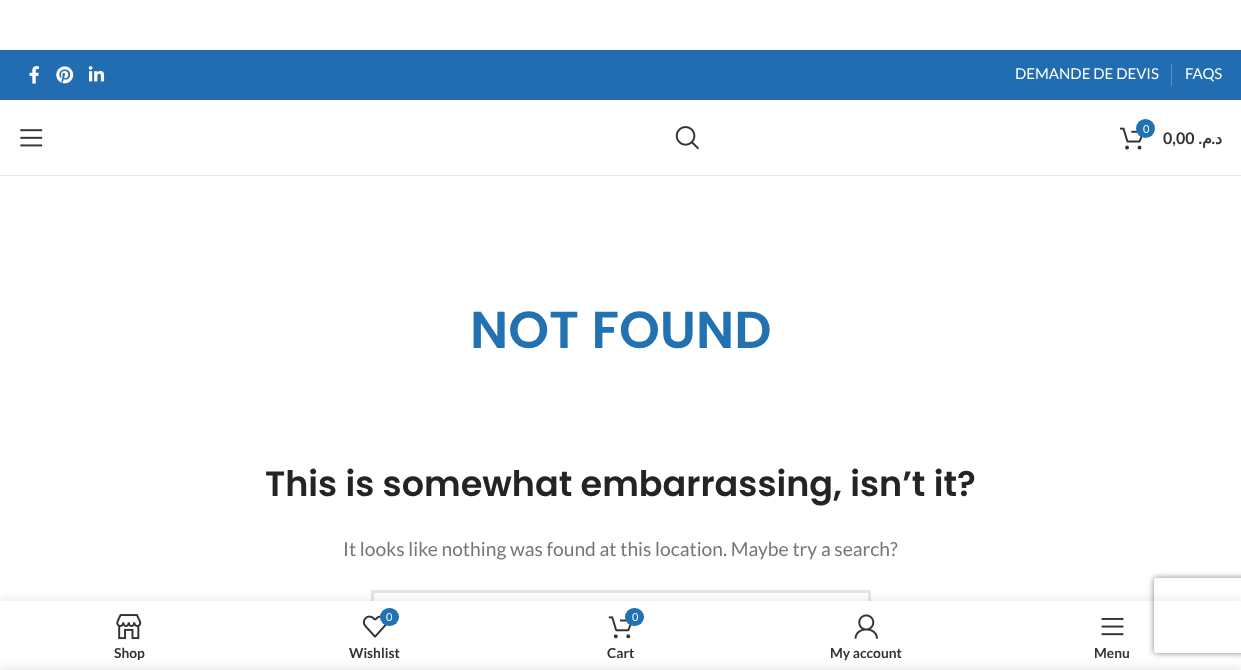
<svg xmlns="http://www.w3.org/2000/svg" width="1241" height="670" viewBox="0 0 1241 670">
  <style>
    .t1 { font: 15px Lato; fill: #fff; }
    .t2 { font: 11px Lato; fill: #fff; }
    .t3 { font: bold 16px Lato; fill: #333; }
    .t4 { font: bold 16px Lato; direction: rtl; fill: #333; }
    .t5 { font: bold 16px DejaVu Sans; direction: rtl; fill: #333; }
    .t6 { font: 600 52px Poppins; fill: #2271b1; }
    .t7 { font: 600 35px Poppins; fill: #242424; }
    .t8 { font: 19.25px Lato; fill: #767676; }
    .t9 { font: bold 13.75px Lato; fill: #333; }
  </style>
  <defs>
    <clipPath id="clip1"><rect x="19" y="644" width="221" height="16"/></clipPath>
    <clipPath id="clip2"><path d="M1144 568H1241V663H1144ZM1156.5 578H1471.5C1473 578 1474 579 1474 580.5V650.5C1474 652 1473 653 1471.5 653H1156.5C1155 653 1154 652 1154 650.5V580.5C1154 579 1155 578 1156.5 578Z" clip-rule="evenodd"/></clipPath>
  </defs>
  <rect width="100%" height="100%" fill="#fff"/>
  <rect x="0" y="50" width="1241" height="50" fill="#226db1"/>
  <image x="29" y="66" width="10" height="18" href="images/1.png"/>
  <image x="56" y="66" width="18" height="18" href="images/2.png"/>
  <image x="88" y="66" width="17" height="16" href="images/3.png"/>
  <text x="1015" y="79" class="t1">DEMANDE DE DEVIS</text>
  <rect x="1171" y="64" width="1" height="22" fill="#5992c5"/>
  <text x="1185" y="79" class="t1">FAQS</text>
  <rect x="0" y="175" width="1241" height="1" fill="#e8e8e8"/>
  <image x="20" y="129" width="23" height="18" href="images/4.png"/>
  <image x="675" y="126" width="24" height="24" href="images/5.png"/>
  <image x="1120" y="127" width="23" height="23" href="images/6.png"/>
  <circle cx="1145.5" cy="128.5" r="9.5" fill="#2271b1"/>
  <text x="1143" y="133" class="t2">0</text>
  <text x="1163" y="144" class="t3">0,00</text>
  <text x="1202" y="144" class="t4">.</text>
  <text x="1212" y="144" class="t5">م</text>
  <text x="1215" y="144" class="t4">.</text>
  <text x="1222" y="144" class="t5">د</text>
  <text x="470" y="348" class="t6">NOT FOUND</text>
  <text x="265" y="496" class="t7">This is somewhat embarrassing, isn’t it?</text>
  <text x="343" y="556" class="t8">It looks like nothing was found at this location. Maybe try a search?</text>
  <rect x="372.5" y="591.5" width="497" height="55" fill="none" stroke="#e6e6e6" stroke-width="3"/>
  <rect x="0" y="601" width="1241" height="69" fill="#0000001f" filter="blur(5.5px)"/>
  <rect x="0" y="601" width="1241" height="69" fill="#fff"/>
  <image x="116" y="614" width="26" height="26" href="images/7.png"/>
  <g clip-path="url(#clip1)">
    <text x="114" y="658" class="t9">Shop</text>
  </g>
  <image x="362" y="615" width="25" height="23" href="images/8.png"/>
  <rect x="380" y="608" width="19" height="18" rx="9" fill="#2271b1"/>
  <text x="386" y="621" class="t2">0</text>
  <text x="349" y="658" class="t9">Wishlist</text>
  <image x="608" y="616" width="24" height="23" href="images/9.png"/>
  <rect x="625" y="608" width="19" height="18" rx="9" fill="#2271b1"/>
  <text x="632" y="621" class="t2">0</text>
  <text x="607" y="658" class="t9">Cart</text>
  <image x="854" y="614" width="24" height="25" href="images/10.png"/>
  <text x="830" y="658" class="t9">My account</text>
  <image x="1101" y="617" width="23" height="19" href="images/11.png"/>
  <text x="1094" y="658" class="t9">Menu</text>
  <g clip-path="url(#clip2)">
    <rect x="1154" y="578" width="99" height="75" rx="2.5" fill="#808080" filter="blur(3px)"/>
  </g>
  <rect x="0" y="670" width="1241" height="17" fill="#00000024" filter="blur(5.5px)"/>
</svg>
